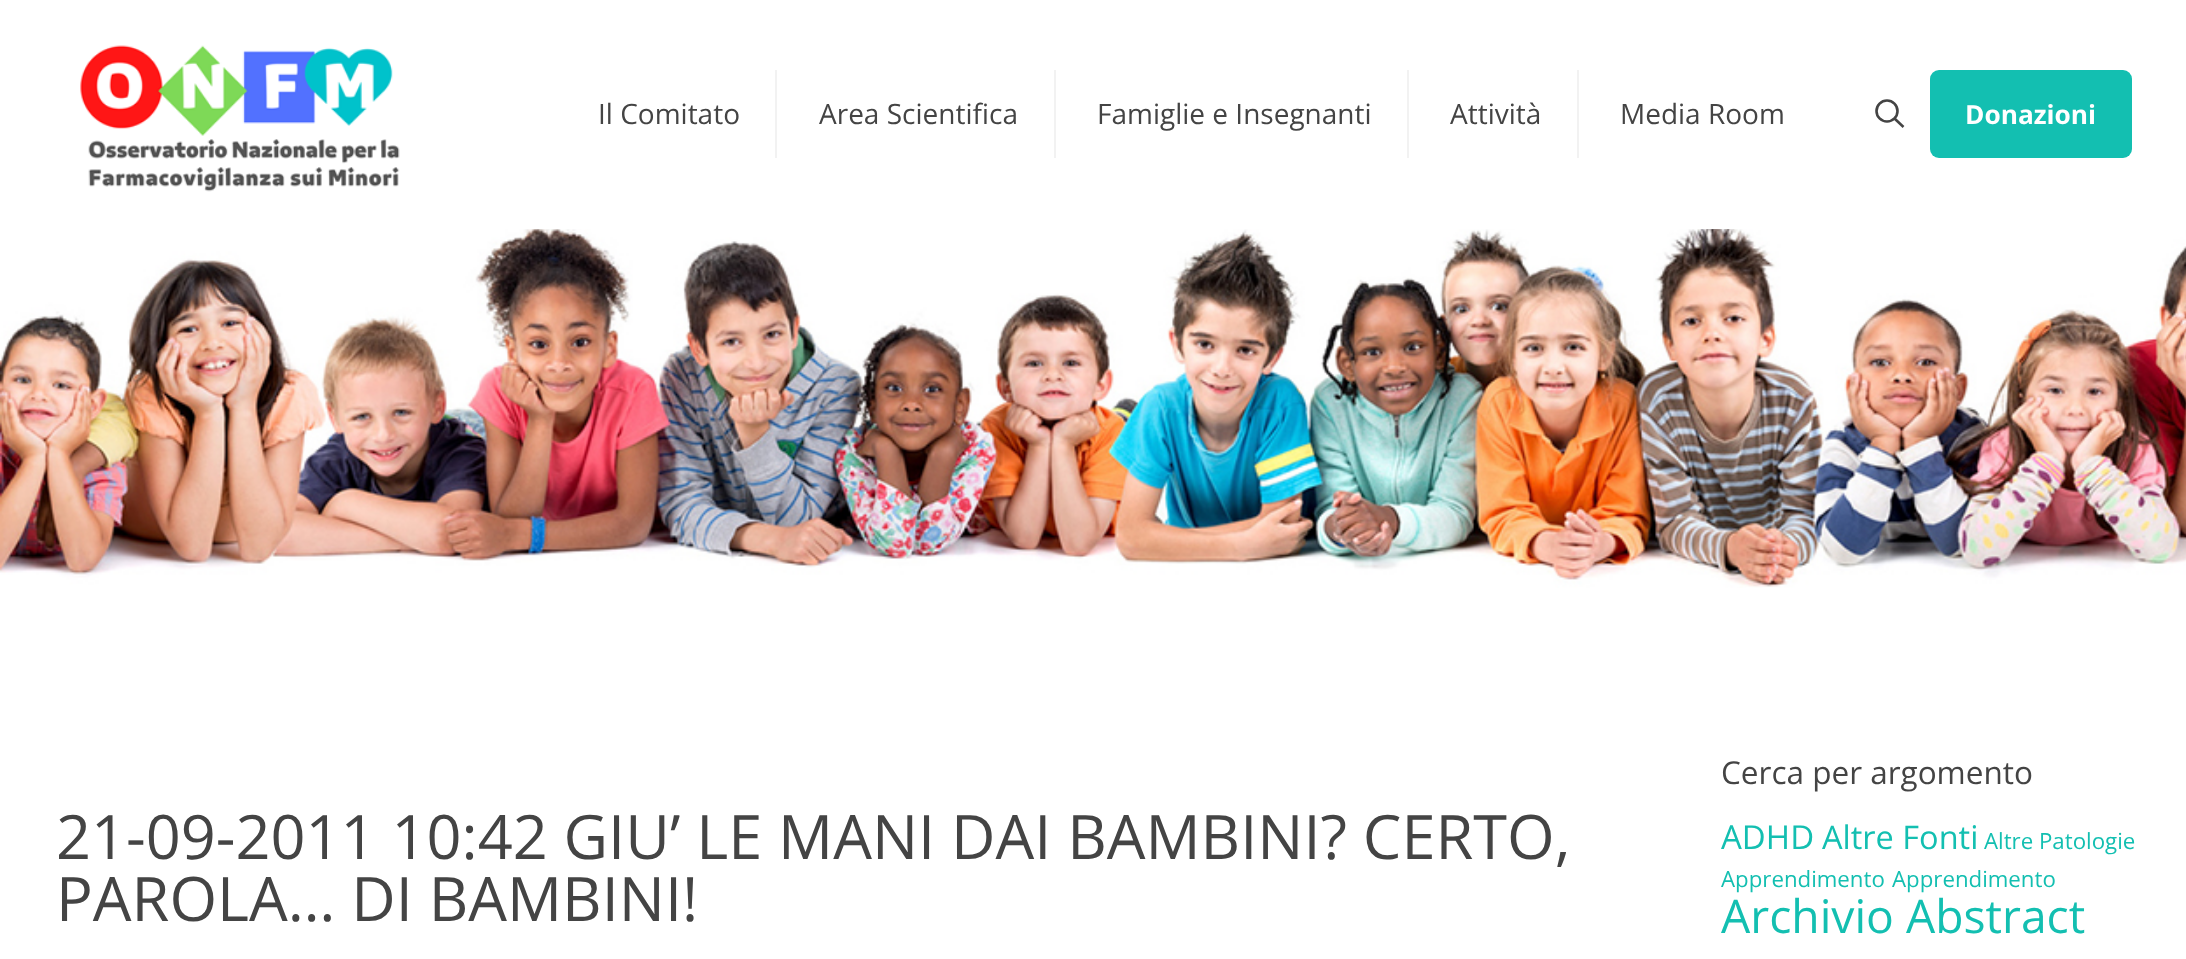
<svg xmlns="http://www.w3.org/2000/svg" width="2186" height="959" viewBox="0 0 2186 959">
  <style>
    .t1 { font: 28px Open Sans; fill: #444; }
    .t2 { font: bold 26.25px Open Sans; fill: #fff; }
    .t3 { font: 61.25px Open Sans; fill: #444; }
    .t4 { font: 31.5px Open Sans; fill: #444; }
    .t5 { font: 33px Open Sans; fill: #13bfb1; }
    .t6 { font: 32.5px Open Sans; fill: #13bfb1; }
    .t7 { font: 22.25px Open Sans; fill: #13bfb1; }
    .t8 { font: 46.25px Open Sans; fill: #13bfb1; }
  </style>
  <rect width="100%" height="100%" fill="#fff"/>
  <image x="0" y="229" width="2186" height="359" href="images/1.png"/>
  <image x="80" y="45" width="320" height="147" href="images/2.png"/>
  <rect x="775" y="70" width="2" height="88" fill="#f2f2f2"/>
  <text x="598" y="124" class="t1">Il Comitato</text>
  <rect x="1054" y="70" width="2" height="88" fill="#f2f2f2"/>
  <text x="819" y="124" class="t1">Area Scientifica</text>
  <rect x="1407" y="70" width="2" height="88" fill="#f2f2f2"/>
  <text x="1097" y="124" class="t1">Famiglie e Insegnanti</text>
  <rect x="1577" y="70" width="2" height="88" fill="#f2f2f2"/>
  <text x="1450" y="124" class="t1">Attività</text>
  <text x="1620" y="124" class="t1">Media Room</text>
  <circle cx="1887" cy="111" r="10.5" fill="none" stroke="#444" stroke-width="2.6"/>
  <path d="M1894.5 118.5L1903.5 127" fill="none" stroke="#444" stroke-width="2.6"/>
  <rect x="1930" y="70" width="202" height="88" rx="9" fill="#13bfb1"/>
  <text x="1965" y="124" class="t2">Donazioni</text>
  <text x="56" y="859" class="t3">21-09-2011 10:42 GIU’ LE MANI DAI BAMBINI? CERTO,</text>
  <text x="56" y="921" class="t3">PAROLA… DI BAMBINI!</text>
  <text x="1721" y="784" class="t4">Cerca per argomento</text>
  <text x="1721" y="849" class="t5">ADHD</text>
  <text x="1822" y="849" class="t6">Altre Fonti</text>
  <text x="1984" y="849" class="t7">Altre Patologie</text>
  <text x="1721" y="887" class="t7">Apprendimento</text>
  <text x="1892" y="887" class="t7">Apprendimento</text>
  <text x="1721" y="933" class="t8">Archivio Abstract</text>
</svg>
